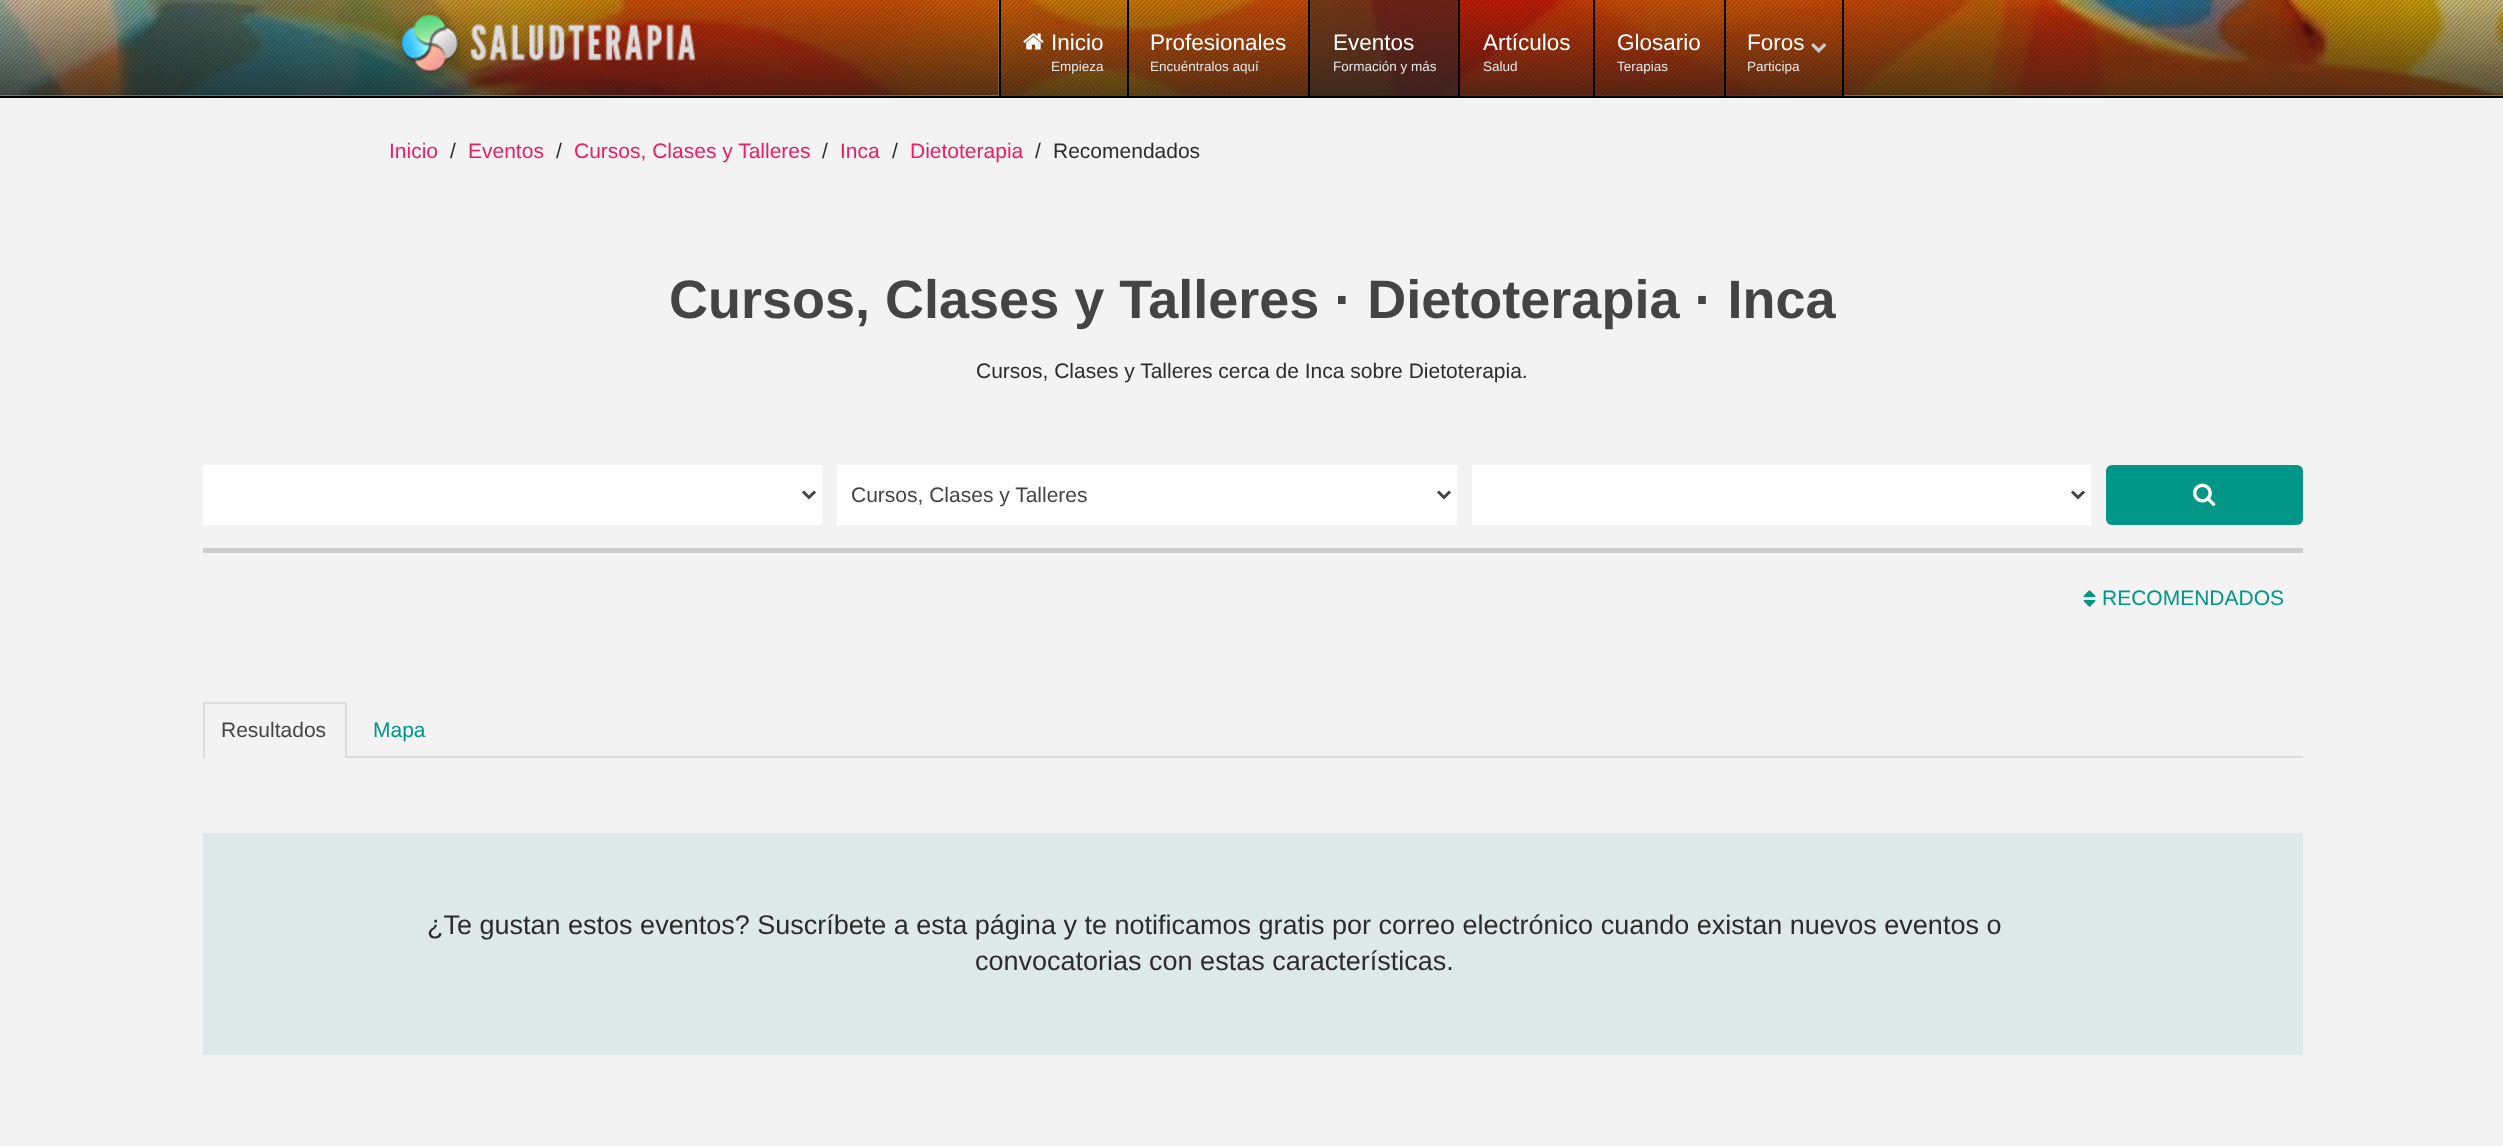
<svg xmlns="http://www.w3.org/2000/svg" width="2503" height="1146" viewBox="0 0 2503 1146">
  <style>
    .t1 { font: 22.5px Liberation Sans; fill: #fff; }
    .t2 { font: 13.5px Liberation Sans; fill: #e6e6e6; }
    .t3 { font: 21px Liberation Sans; fill: #e91e63; }
    .t4 { font: 21px Liberation Sans; fill: #2d2b2b; }
    .t5 { font: bold 54px Liberation Sans; fill: #444; }
    .t6 { font: 21px Liberation Sans; fill: #444; }
    .t7 { font: 21px Liberation Sans; fill: #009688; }
    .t8 { font: 27px Liberation Sans; fill: #2d2b2b; }
  </style>
  <defs>
    <linearGradient id="g1" gradientUnits="userSpaceOnUse" x1="1252" y1="0" x2="1252" y2="96"><stop offset="0" stop-color="#1b1b1b" stop-opacity="0.2"/><stop offset="1" stop-color="#1b1b1b" stop-opacity="0.7"/></linearGradient>
  </defs>
  <rect width="100%" height="100%" fill="#fff"/>
  <image x="0" y="0" width="2503" height="96" href="images/1.png"/>
  <image x="0" y="0" width="2503" height="96" href="images/2.png"/>
  <rect x="0" y="0" width="2503" height="96" fill="url(#g1)"/>
  <rect x="0" y="95" width="2503" height="1" fill="#e1e1e14d"/>
  <rect x="0" y="96" width="2503" height="2" fill="#000"/>
  <image x="396" y="11" width="301" height="65" href="images/3.png"/>
  <rect x="999" y="95" width="128" height="1" fill="#00000066"/>
  <rect x="1127" y="0" width="2" height="96" fill="#000"/>
  <rect x="998" y="0" width="1" height="96" fill="#e1e1e133"/>
  <rect x="999" y="0" width="2" height="96" fill="#000"/>
  <image x="1023" y="33" width="21" height="17" href="images/4.png"/>
  <text x="1051" y="50" class="t1">Inicio</text>
  <text x="1051" y="71" class="t2">Empieza</text>
  <rect x="1128" y="95" width="180" height="1" fill="#00000066"/>
  <rect x="1308" y="0" width="2" height="96" fill="#000"/>
  <text x="1150" y="50" class="t1">Profesionales</text>
  <text x="1150" y="71" class="t2">Encuéntralos aquí</text>
  <rect x="1310" y="0" width="148" height="96" fill="#28282880"/>
  <rect x="1310" y="95" width="148" height="1" fill="#00000066"/>
  <rect x="1458" y="0" width="2" height="96" fill="#000"/>
  <text x="1333" y="50" class="t1">Eventos</text>
  <text x="1333" y="71" class="t2">Formación y más</text>
  <rect x="1460" y="95" width="133" height="1" fill="#00000066"/>
  <rect x="1593" y="0" width="2" height="96" fill="#000"/>
  <text x="1483" y="50" class="t1">Artículos</text>
  <text x="1483" y="71" class="t2">Salud</text>
  <rect x="1595" y="95" width="129" height="1" fill="#00000066"/>
  <rect x="1724" y="0" width="2" height="96" fill="#000"/>
  <text x="1617" y="50" class="t1">Glosario</text>
  <text x="1617" y="71" class="t2">Terapias</text>
  <rect x="1725" y="95" width="117" height="1" fill="#00000066"/>
  <rect x="1842" y="0" width="2" height="96" fill="#000"/>
  <text x="1747" y="50" class="t1">Foros</text>
  <image x="1811" y="43" width="16" height="10" href="images/5.png"/>
  <text x="1747" y="71" class="t2">Participa</text>
  <rect x="0" y="98" width="2503" height="1048" fill="#f3f3f3"/>
  <text x="389" y="158" class="t3">Inicio</text>
  <text x="450" y="158" class="t4">/</text>
  <text x="468" y="158" class="t3">Eventos</text>
  <text x="556" y="158" class="t4">/</text>
  <text x="574" y="158" class="t3">Cursos, Clases y Talleres</text>
  <text x="822" y="158" class="t4">/</text>
  <text x="840" y="158" class="t3">Inca</text>
  <text x="892" y="158" class="t4">/</text>
  <text x="910" y="158" class="t3">Dietoterapia</text>
  <text x="1035" y="158" class="t4">/</text>
  <text x="1053" y="158" class="t4">Recomendados</text>
  <text x="669" y="318" class="t5">Cursos, Clases y Talleres · Dietoterapia · Inca</text>
  <text x="976" y="378" class="t4">Cursos, Clases y Talleres cerca de Inca sobre Dietoterapia.</text>
  <rect x="203" y="465" width="619" height="60" fill="#fff"/>
  <path d="M803 491.5L809 497.5L815 491.5" fill="none" stroke="#444" stroke-width="3"/>
  <rect x="837" y="465" width="620" height="60" fill="#fff"/>
  <path d="M1438 491.5L1444 497.5L1450 491.5" fill="none" stroke="#444" stroke-width="3"/>
  <text x="851" y="502" class="t6">Cursos, Clases y Talleres</text>
  <rect x="1472" y="465" width="619" height="60" fill="#fff"/>
  <path d="M2072 491.5L2078 497.5L2084 491.5" fill="none" stroke="#444" stroke-width="3"/>
  <rect x="2106" y="465" width="197" height="60" rx="6" fill="#009688"/>
  <image x="2193" y="483" width="23" height="23" href="images/6.png"/>
  <rect x="203" y="548" width="2100" height="5" fill="#ccc"/>
  <image x="2083" y="590" width="13" height="17" href="images/7.png"/>
  <text x="2102" y="605" class="t7">RECOMENDADOS</text>
  <rect x="347" y="756" width="1956" height="2" fill="#ddd"/>
  <rect x="203" y="702" width="144" height="2" fill="#ddd"/>
  <rect x="345" y="702" width="2" height="56" fill="#ddd"/>
  <rect x="203" y="702" width="2" height="56" fill="#ddd"/>
  <text x="221" y="737" class="t6">Resultados</text>
  <text x="373" y="737" class="t7">Mapa</text>
  <rect x="203" y="833" width="2100" height="222" fill="#ddeae9"/>
  <text x="427" y="934" class="t8">¿Te gustan estos eventos? Suscríbete a esta página y te notificamos gratis por correo electrónico cuando existan nuevos eventos o</text>
  <text x="975" y="970" class="t8">convocatorias con estas características.</text>
</svg>
